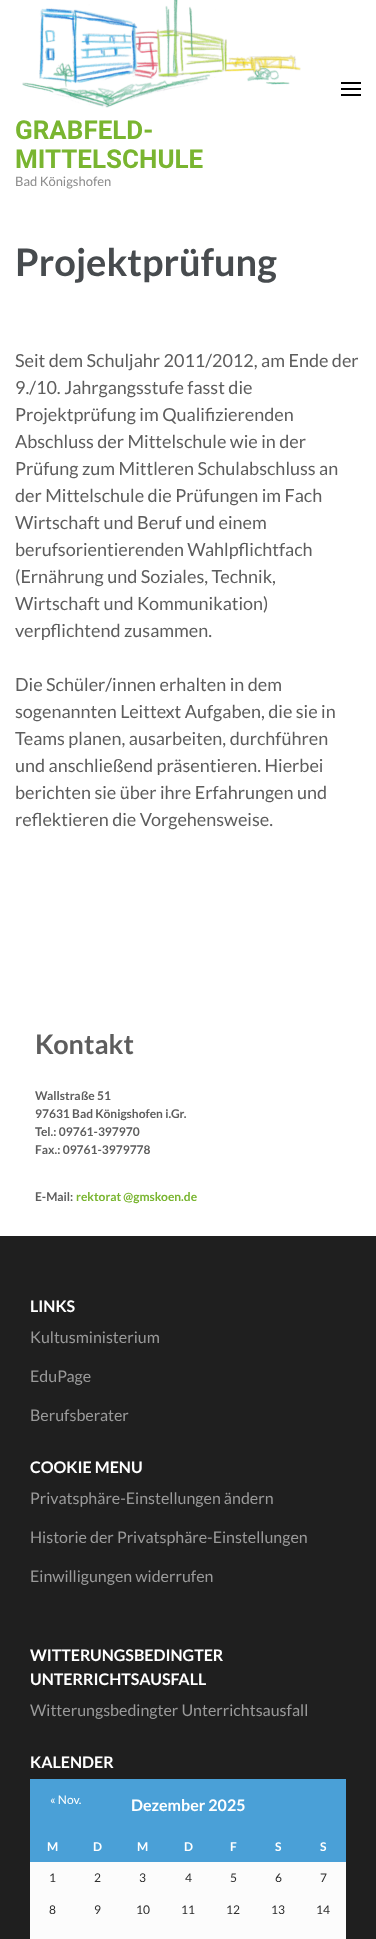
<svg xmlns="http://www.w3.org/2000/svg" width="376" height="1939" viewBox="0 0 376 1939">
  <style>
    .t1 { font: bold 26px Roboto; fill: #79b530; }
    .t2 { font: 13px Lato; fill: #8c8c8c; }
    .t3 { font: bold 38px Lato; fill: #474b4e; }
    .t4 { font: 18px Lato; fill: #5d5d5d; }
    .t5 { font: bold 27px Lato; fill: #5d5d5d; }
    .t6 { font: bold 12px Lato; fill: #5d5d5d; }
    .t7 { font: bold 12px Lato; fill: #79b530; }
    .t8 { font: bold 16px Lato; fill: #fff; }
    .t9 { font: 16px Lato; fill: #9a9a9a; }
    .t10 { font: 12px Lato; fill: #fff; }
    .t11 { font: bold 12px Lato; fill: #fff; }
    .t12 { font: 12px Lato; fill: #2d2d2d; }
  </style>
  <rect width="100%" height="100%" fill="#fff"/>
  <rect x="341" y="82" width="20" height="2" fill="#000"/>
  <rect x="341" y="88" width="20" height="2" fill="#000"/>
  <rect x="341" y="94" width="20" height="2" fill="#000"/>
  <image x="22" y="0" width="279" height="108" href="images/1.png"/>
  <text x="15" y="139" class="t1">GRABFELD-</text>
  <text x="15" y="168" class="t1">MITTELSCHULE</text>
  <text x="15" y="186" class="t2">Bad Königshofen</text>
  <text x="15" y="276" class="t3">Projektprüfung</text>
  <text x="15" y="367" class="t4">Seit dem Schuljahr 2011/2012, am Ende der</text>
  <text x="15" y="394" class="t4">9./10. Jahrgangsstufe fasst die</text>
  <text x="15" y="421" class="t4">Projektprüfung im Qualifizierenden</text>
  <text x="15" y="448" class="t4">Abschluss der Mittelschule wie in der</text>
  <text x="15" y="475" class="t4">Prüfung zum Mittleren Schulabschluss an</text>
  <text x="15" y="502" class="t4">der Mittelschule die Prüfungen im Fach</text>
  <text x="15" y="529" class="t4">Wirtschaft und Beruf und einem</text>
  <text x="15" y="556" class="t4">berufsorientierenden Wahlpflichtfach</text>
  <text x="15" y="583" class="t4">(Ernährung und Soziales, Technik,</text>
  <text x="15" y="610" class="t4">Wirtschaft und Kommunikation)</text>
  <text x="15" y="637" class="t4">verpflichtend zusammen.</text>
  <text x="15" y="691" class="t4">Die Schüler/innen erhalten in dem</text>
  <text x="15" y="718" class="t4">sogenannten Leittext Aufgaben, die sie in</text>
  <text x="15" y="745" class="t4">Teams planen, ausarbeiten, durchführen</text>
  <text x="15" y="772" class="t4">und anschließend präsentieren. Hierbei</text>
  <text x="15" y="799" class="t4">berichten sie über ihre Erfahrungen und</text>
  <text x="15" y="826" class="t4">reflektieren die Vorgehensweise.</text>
  <text x="35" y="1054" class="t5">Kontakt</text>
  <text x="35" y="1100" class="t6">Wallstraße 51</text>
  <text x="35" y="1118" class="t6">97631 Bad Königshofen i.Gr.</text>
  <text x="35" y="1136" class="t6">Tel.: 09761-397970</text>
  <text x="35" y="1154" class="t6">Fax.: 09761-3979778</text>
  <text x="35" y="1201" class="t6">E-Mail:</text>
  <text x="76" y="1201" class="t7">rektorat @gmskoen.de</text>
  <rect x="0" y="1236" width="376" height="703" fill="#1f1f1f"/>
  <text x="30" y="1312" class="t8">LINKS</text>
  <text x="30" y="1343" class="t9">Kultusministerium</text>
  <text x="30" y="1382" class="t9">EduPage</text>
  <text x="30" y="1421" class="t9">Berufsberater</text>
  <text x="30" y="1473" class="t8">COOKIE MENU</text>
  <text x="30" y="1504" class="t9">Privatsphäre-Einstellungen ändern</text>
  <text x="30" y="1543" class="t9">Historie der Privatsphäre-Einstellungen</text>
  <text x="30" y="1582" class="t9">Einwilligungen widerrufen</text>
  <text x="30" y="1661" class="t8">WITTERUNGSBEDINGTER</text>
  <text x="30" y="1685" class="t8">UNTERRICHTSAUSFALL</text>
  <text x="30" y="1716" class="t9">Witterungsbedingter Unterrichtsausfall</text>
  <text x="30" y="1768" class="t8">KALENDER</text>
  <rect x="30" y="1779" width="316" height="83" fill="#4aa0d7"/>
  <text x="50" y="1804" class="t10">« Nov.</text>
  <text x="131" y="1811" class="t8">Dezember 2025</text>
  <text x="47" y="1851" class="t11">M</text>
  <text x="93" y="1851" class="t11">D</text>
  <text x="137" y="1851" class="t11">M</text>
  <text x="184" y="1851" class="t11">D</text>
  <text x="230" y="1851" class="t11">F</text>
  <text x="275" y="1851" class="t11">S</text>
  <text x="320" y="1851" class="t11">S</text>
  <rect x="30" y="1862" width="316" height="77" fill="#fcfcfc"/>
  <text x="49" y="1882" class="t12">1</text>
  <text x="94" y="1882" class="t12">2</text>
  <text x="139" y="1882" class="t12">3</text>
  <text x="185" y="1882" class="t12">4</text>
  <text x="230" y="1882" class="t12">5</text>
  <text x="275" y="1882" class="t12">6</text>
  <text x="320" y="1882" class="t12">7</text>
  <text x="49" y="1914" class="t12">8</text>
  <text x="94" y="1914" class="t12">9</text>
  <text x="136" y="1914" class="t12">10</text>
  <text x="181" y="1914" class="t12">11</text>
  <text x="226" y="1914" class="t12">12</text>
  <text x="271" y="1914" class="t12">13</text>
  <text x="316" y="1914" class="t12">14</text>
</svg>
